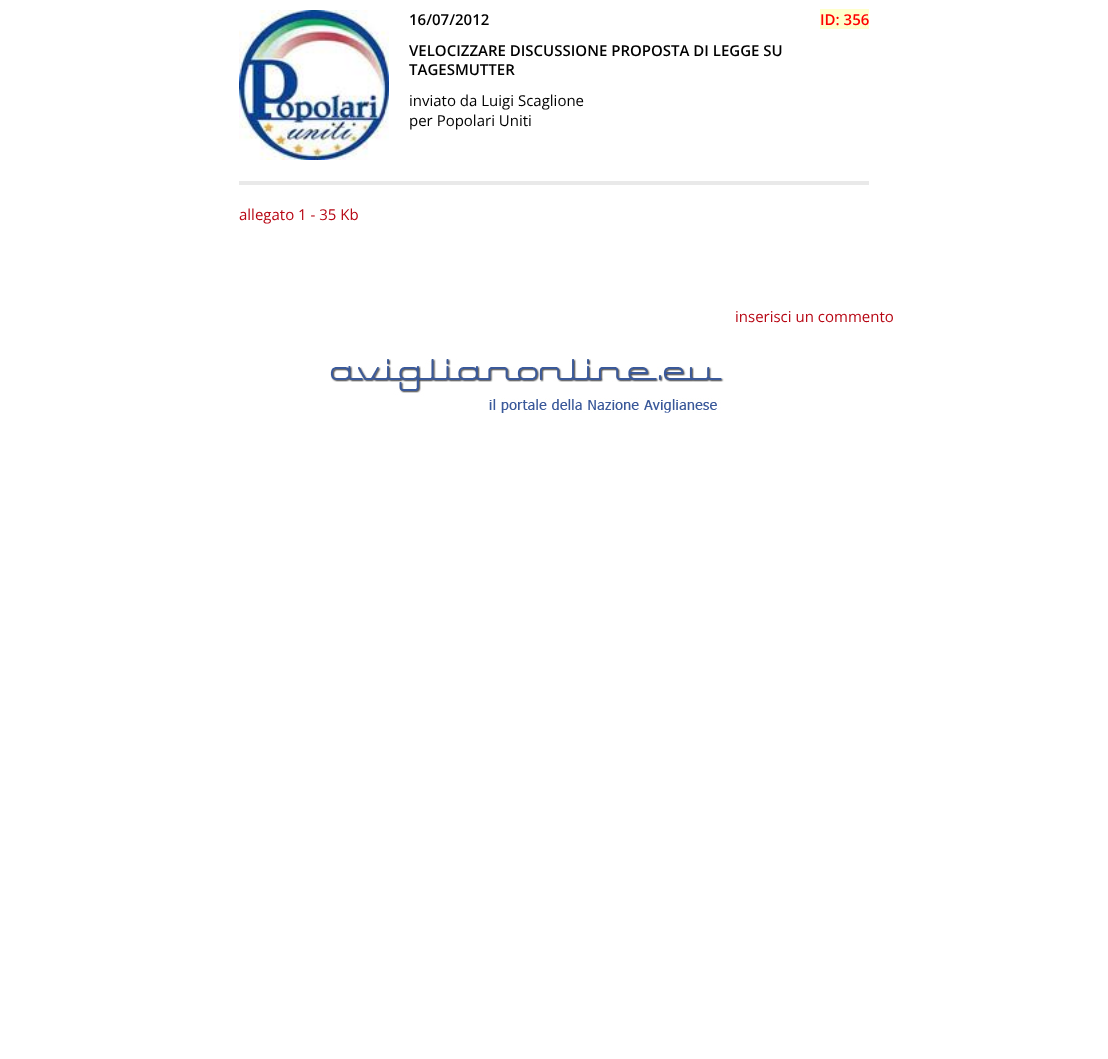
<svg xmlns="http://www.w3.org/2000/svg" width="1108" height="1059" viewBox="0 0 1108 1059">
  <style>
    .t1 { font: 600 15px Open Sans; fill: #000; }
    .t2 { font: 600 15px Open Sans; fill: #f00; }
    .t3 { font: 15px Open Sans; fill: #000; }
    .t4 { font: 15px Open Sans; fill: #b70613; }
  </style>
  <rect width="100%" height="100%" fill="#fff"/>
  <image x="239" y="10" width="150" height="150" href="images/1.png"/>
  <text x="409" y="25" class="t1">16/07/2012</text>
  <rect x="820" y="9" width="49" height="20" fill="#ffc"/>
  <text x="820" y="25" class="t2">ID: 356</text>
  <text x="409" y="56" class="t1">VELOCIZZARE DISCUSSIONE PROPOSTA DI LEGGE SU</text>
  <text x="409" y="75" class="t1">TAGESMUTTER</text>
  <text x="409" y="106" class="t3">inviato da Luigi Scaglione</text>
  <text x="409" y="126" class="t3">per Popolari Uniti</text>
  <rect x="239" y="181" width="630" height="4" fill="#e9e9e9"/>
  <text x="239" y="220" class="t4">allegato 1 - 35 Kb</text>
  <text x="735" y="322" class="t4">inserisci un commento</text>
  <image x="330" y="359" width="394" height="54" href="images/2.png"/>
</svg>
